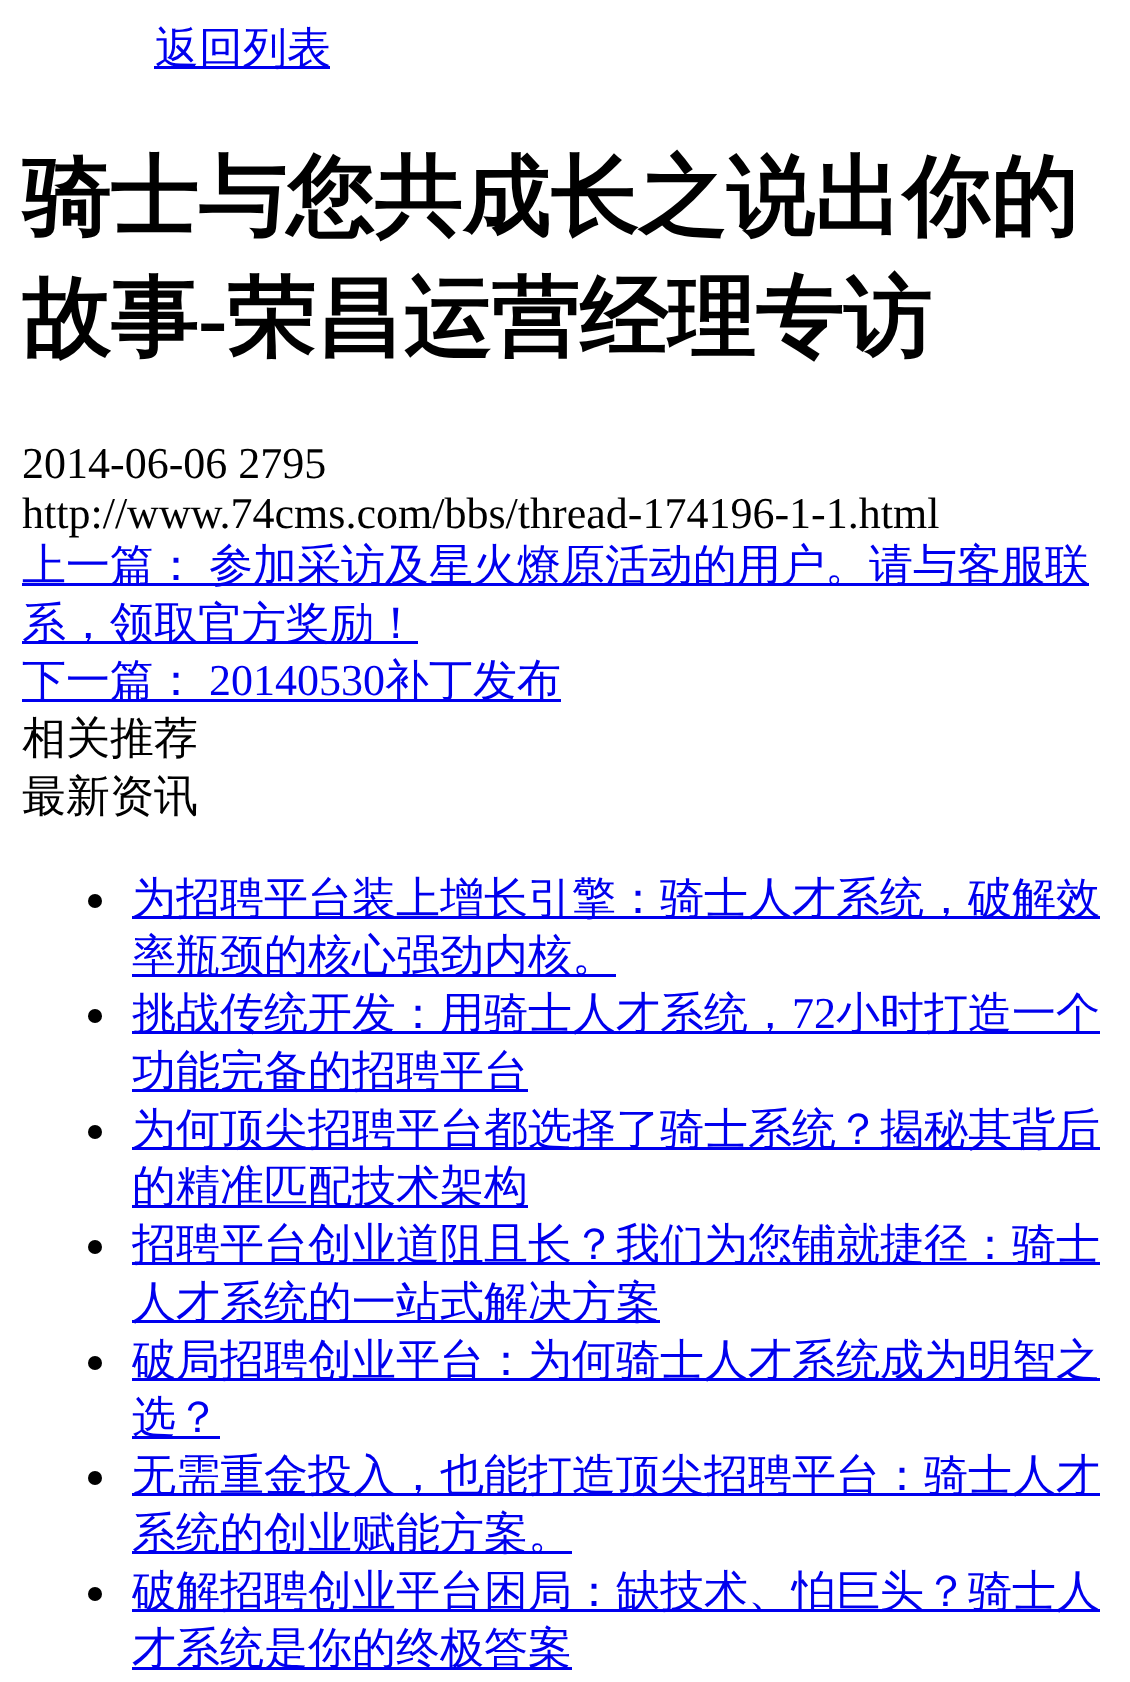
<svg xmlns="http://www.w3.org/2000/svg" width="1130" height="1682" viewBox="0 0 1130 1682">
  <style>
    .t1 { font: 500 44px WenQuanYi Zen Hei; fill: #00e; }
    .t2 { font: bold 88px WenQuanYi Zen Hei; fill: #000; }
    .t3 { font: bold 88px Liberation Serif; fill: #000; }
    .t4 { font: 44px Liberation Serif; fill: #000; }
    .t5 { font: 44px Liberation Serif; fill: #00e; }
    .t6 { font: 500 44px WenQuanYi Zen Hei; fill: #000; }
  </style>
  <rect width="100%" height="100%" fill="#fff"/>
  <rect x="154" y="66" width="176" height="3" fill="#00e"/>
  <text x="155" y="63" class="t1">返回列表</text>
  <text x="22" y="227" class="t2">骑士与您共成长之说出你的</text>
  <text x="22" y="348" class="t2">故事</text>
  <text x="198" y="348" class="t3">-</text>
  <text x="227" y="348" class="t2">荣昌运营经理专访</text>
  <text x="22" y="478" class="t4">2014-06-06 2795</text>
  <text x="22" y="528" class="t4">http://www.74cms.com/bbs/thread-174196-1-1.html</text>
  <rect x="22" y="583" width="1067" height="3" fill="#00e"/>
  <text x="22" y="580" class="t1">上一篇：</text>
  <text x="209" y="580" class="t1">参加采访及星火燎原活动的用户。请与客服联</text>
  <rect x="22" y="641" width="396" height="3" fill="#00e"/>
  <text x="22" y="638" class="t1">系，领取官方奖励！</text>
  <rect x="22" y="699" width="539" height="3" fill="#00e"/>
  <text x="22" y="695" class="t1">下一篇：</text>
  <text x="209" y="695" class="t5">20140530</text>
  <text x="385" y="695" class="t1">补丁发布</text>
  <text x="22" y="753" class="t6">相关推荐</text>
  <text x="22" y="811" class="t6">最新资讯</text>
  <circle cx="95" cy="901" r="7" fill="#000"/>
  <rect x="132" y="916" width="968" height="3" fill="#00e"/>
  <text x="132" y="913" class="t1">为招聘平台装上增长引擎：骑士人才系统，破解效</text>
  <rect x="132" y="974" width="484" height="3" fill="#00e"/>
  <text x="132" y="970" class="t1">率瓶颈的核心强劲内核。</text>
  <circle cx="95" cy="1016" r="7" fill="#000"/>
  <rect x="132" y="1031" width="968" height="3" fill="#00e"/>
  <text x="132" y="1028" class="t1">挑战传统开发：用骑士人才系统，</text>
  <text x="792" y="1028" class="t5">72</text>
  <text x="836" y="1028" class="t1">小时打造一个</text>
  <rect x="132" y="1089" width="396" height="3" fill="#00e"/>
  <text x="132" y="1086" class="t1">功能完备的招聘平台</text>
  <circle cx="95" cy="1132" r="7" fill="#000"/>
  <rect x="132" y="1147" width="968" height="3" fill="#00e"/>
  <text x="132" y="1144" class="t1">为何顶尖招聘平台都选择了骑士系统？揭秘其背后</text>
  <rect x="132" y="1205" width="396" height="3" fill="#00e"/>
  <text x="132" y="1201" class="t1">的精准匹配技术架构</text>
  <circle cx="95" cy="1247" r="7" fill="#000"/>
  <rect x="132" y="1262" width="968" height="3" fill="#00e"/>
  <text x="132" y="1259" class="t1">招聘平台创业道阻且长？我们为您铺就捷径：骑士</text>
  <rect x="132" y="1320" width="528" height="3" fill="#00e"/>
  <text x="132" y="1317" class="t1">人才系统的一站式解决方案</text>
  <circle cx="95" cy="1363" r="7" fill="#000"/>
  <rect x="132" y="1378" width="968" height="3" fill="#00e"/>
  <text x="132" y="1375" class="t1">破局招聘创业平台：为何骑士人才系统成为明智之</text>
  <rect x="132" y="1436" width="88" height="3" fill="#00e"/>
  <text x="132" y="1432" class="t1">选？</text>
  <circle cx="95" cy="1478" r="7" fill="#000"/>
  <rect x="132" y="1493" width="968" height="3" fill="#00e"/>
  <text x="132" y="1490" class="t1">无需重金投入，也能打造顶尖招聘平台：骑士人才</text>
  <rect x="132" y="1551" width="440" height="3" fill="#00e"/>
  <text x="132" y="1548" class="t1">系统的创业赋能方案。</text>
  <circle cx="95" cy="1594" r="7" fill="#000"/>
  <rect x="132" y="1609" width="968" height="3" fill="#00e"/>
  <text x="132" y="1606" class="t1">破解招聘创业平台困局：缺技术、怕巨头？骑士人</text>
  <rect x="132" y="1667" width="440" height="3" fill="#00e"/>
  <text x="132" y="1663" class="t1">才系统是你的终极答案</text>
</svg>
